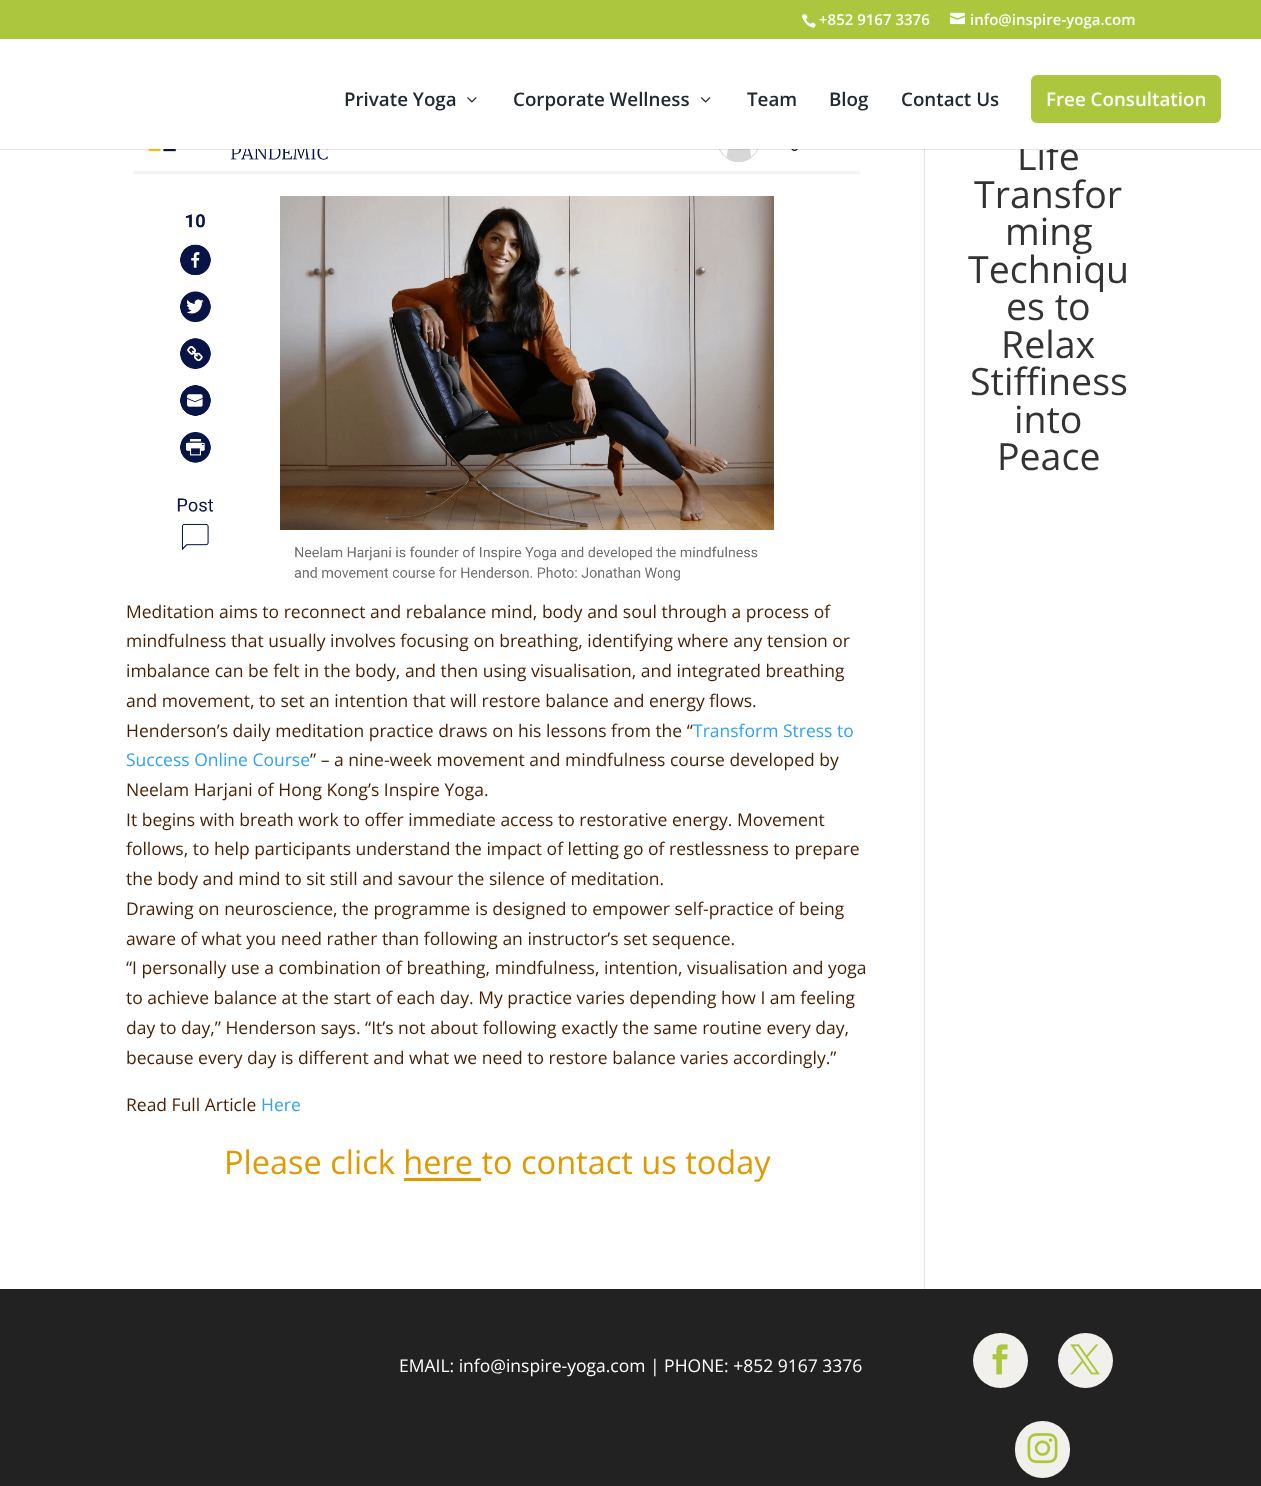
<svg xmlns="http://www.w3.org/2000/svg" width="1261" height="1486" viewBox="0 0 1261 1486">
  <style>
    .t1 { font: 600 15px Open Sans; fill: #fff; }
    .t2 { font: 37.5px Open Sans; fill: #333; }
    .t3 { font: 600 18.75px Open Sans; fill: #20292f; }
    .t4 { font: 600 18.75px Open Sans; fill: #fff; }
    .t5 { font: 17.5px Open Sans; fill: #471f00; }
    .t6 { font: 17.5px Open Sans; fill: #2ea3f2; }
    .t7 { font: 32.5px Open Sans; fill: #e09900; }
    .t8 { font: 17.5px Open Sans; fill: #fff; }
  </style>
  <rect width="100%" height="100%" fill="#fff"/>
  <rect x="0" y="0" width="1261" height="39" fill="#acc73d"/>
  <image x="801" y="14" width="15" height="14" href="images/1.png"/>
  <text x="819" y="25" class="t1">+852 9167 3376</text>
  <image x="950" y="12" width="15" height="13" href="images/2.png"/>
  <text x="970" y="25" class="t1">info@inspire-yoga.com</text>
  <image x="133" y="149" width="727" height="432" href="images/5.png"/>
  <rect x="924" y="149" width="1" height="1140" fill="#e2e2e2"/>
  <rect x="0" y="149" width="1261" height="1" fill="#0000001a"/>
  <text x="1017" y="170" class="t2">Life</text>
  <rect x="1020" y="141" width="41" height="8" fill="#fff"/>
  <text x="344" y="106" class="t3">Private Yoga</text>
  <image x="467" y="97" width="10" height="6" href="images/3.png"/>
  <text x="513" y="106" class="t3">Corporate Wellness</text>
  <image x="701" y="97" width="10" height="6" href="images/4.png"/>
  <text x="747" y="106" class="t3">Team</text>
  <text x="829" y="106" class="t3">Blog</text>
  <text x="901" y="106" class="t3">Contact Us</text>
  <rect x="1031" y="75" width="190" height="48" rx="6" fill="#acc73d"/>
  <text x="1046" y="106" class="t4">Free Consultation</text>
  <text x="974" y="208" class="t2">Transfor</text>
  <text x="1005" y="245" class="t2">ming</text>
  <text x="968" y="283" class="t2">Techniqu</text>
  <text x="1006" y="320" class="t2">es to</text>
  <text x="1001" y="358" class="t2">Relax</text>
  <text x="970" y="395" class="t2">Stiffiness</text>
  <text x="1014" y="433" class="t2">into</text>
  <text x="997" y="470" class="t2">Peace</text>
  <text x="126" y="618" class="t5">Meditation aims to reconnect and rebalance mind, body and soul through a process of</text>
  <text x="126" y="647" class="t5">mindfulness that usually involves focusing on breathing, identifying where any tension or</text>
  <text x="126" y="677" class="t5">imbalance can be felt in the body, and then using visualisation, and integrated breathing</text>
  <text x="126" y="707" class="t5">and movement, to set an intention that will restore balance and energy flows.</text>
  <text x="126" y="737" class="t5">Henderson’s daily meditation practice draws on his lessons from the “</text>
  <text x="693" y="737" class="t6">Transform Stress to</text>
  <text x="126" y="766" class="t6">Success Online Course</text>
  <text x="310" y="766" class="t5">” – a nine-week movement and mindfulness course developed by</text>
  <text x="126" y="796" class="t5">Neelam Harjani of Hong Kong’s Inspire Yoga.</text>
  <text x="126" y="826" class="t5">It begins with breath work to offer immediate access to restorative energy. Movement</text>
  <text x="126" y="855" class="t5">follows, to help participants understand the impact of letting go of restlessness to prepare</text>
  <text x="126" y="885" class="t5">the body and mind to sit still and savour the silence of meditation.</text>
  <text x="126" y="915" class="t5">Drawing on neuroscience, the programme is designed to empower self-practice of being</text>
  <text x="126" y="945" class="t5">aware of what you need rather than following an instructor’s set sequence.</text>
  <text x="126" y="974" class="t5">“I personally use a combination of breathing, mindfulness, intention, visualisation and yoga</text>
  <text x="126" y="1004" class="t5">to achieve balance at the start of each day. My practice varies depending how I am feeling</text>
  <text x="126" y="1034" class="t5">day to day,” Henderson says. “It’s not about following exactly the same routine every day,</text>
  <text x="126" y="1064" class="t5">because every day is different and what we need to restore balance varies accordingly.”</text>
  <text x="126" y="1111" class="t5">Read Full Article</text>
  <text x="261" y="1111" class="t6">Here</text>
  <text x="224" y="1174" class="t7">Please click here to contact us today</text>
  <rect x="404" y="1178" width="77" height="3" fill="#e09900"/>
  <rect x="0" y="1289" width="1261" height="197" fill="#222"/>
  <text x="399" y="1372" class="t8">EMAIL: info@inspire-yoga.com | PHONE: +852 9167 3376</text>
  <circle cx="1000.5" cy="1360.5" r="27.5" fill="#f1f0ec"/>
  <image x="992" y="1344" width="16" height="31" href="images/6.png"/>
  <circle cx="1085.5" cy="1360.5" r="27.5" fill="#f1f0ec"/>
  <image x="1070" y="1344" width="30" height="31" href="images/7.png"/>
  <rect x="1015" y="1421" width="55" height="57" rx="27.5" fill="#f1f0ec"/>
  <image x="1027" y="1433" width="31" height="31" href="images/8.png"/>
</svg>
